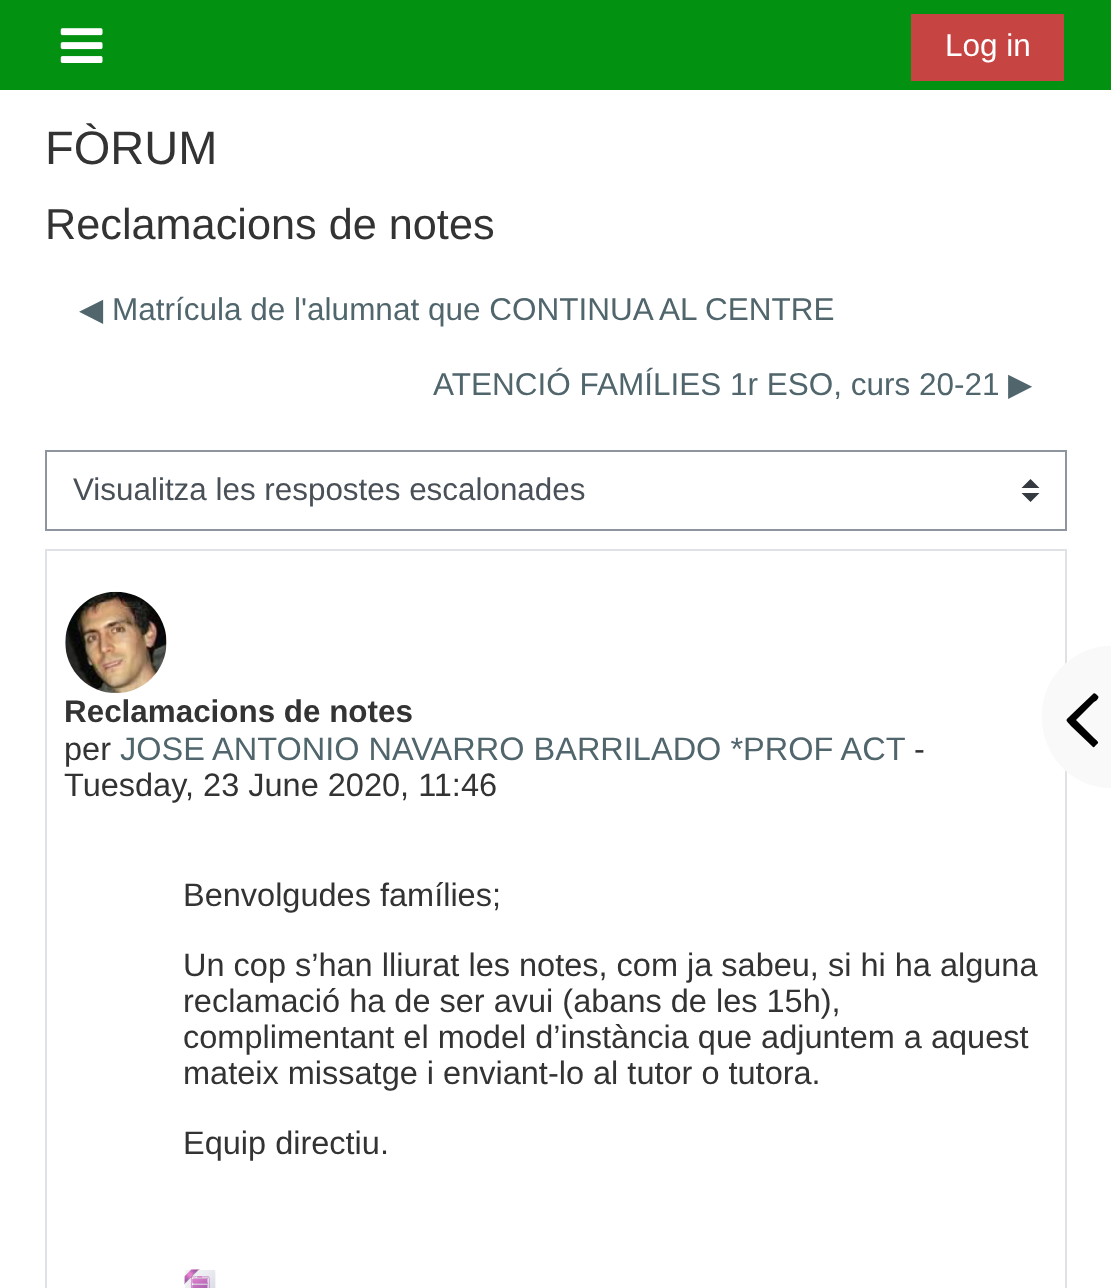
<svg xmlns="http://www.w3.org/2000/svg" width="1111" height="1288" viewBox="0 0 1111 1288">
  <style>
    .t1 { font: 31.5px Liberation Sans; fill: #fff; }
    .t2 { font: 47px Liberation Sans; fill: #333; }
    .t3 { font: 43.25px Liberation Sans; fill: #333; }
    .t4 { font: 31.5px DejaVu Sans; fill: #51666c; }
    .t5 { font: 31.5px Liberation Sans; fill: #51666c; }
    .t6 { font: 31.4px Liberation Sans; fill: #495057; }
    .t7 { font: bold 31.4px Liberation Sans; fill: #333; }
    .t8 { font: 32.5px Liberation Sans; fill: #333; }
    .t9 { font: 32.5px Liberation Sans; fill: #51666c; }
  </style>
  <rect width="100%" height="100%" fill="#fff"/>
  <rect x="0" y="0" width="1111" height="90" fill="#029111"/>
  <image x="60" y="28" width="43" height="35" href="images/1.png"/>
  <rect x="911" y="14" width="153" height="67" fill="#c64543"/>
  <text x="945" y="56" class="t1">Log in</text>
  <text x="45" y="164" class="t2">FÒRUM</text>
  <text x="45" y="239" class="t3">Reclamacions de notes</text>
  <text x="79" y="320" class="t4">◀︎</text>
  <text x="112" y="320" class="t5">Matrícula de l'alumnat que CONTINUA AL CENTRE</text>
  <text x="433" y="395" class="t5">ATENCIÓ FAMÍLIES 1r ESO, curs 20-21</text>
  <text x="1008" y="395" class="t4">▶︎</text>
  <path d="M1030.5 479L1021.5 488H1039.5ZM1030.5 502L1021.5 493H1039.5Z" fill="#343a40"/>
  <rect x="46" y="451" width="1020" height="79" fill="none" stroke="#8f959e" stroke-width="2"/>
  <text x="73" y="500" class="t6">Visualitza les respostes escalonades</text>
  <rect x="46" y="550" width="1020" height="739" fill="none" stroke="#dee2e6" stroke-width="2"/>
  <image x="65" y="591" width="102" height="102" href="images/2.png"/>
  <text x="64" y="722" class="t7">Reclamacions de notes</text>
  <text x="64" y="760" class="t8">per</text>
  <text x="120" y="760" class="t9">JOSE ANTONIO NAVARRO BARRILADO *PROF ACT</text>
  <text x="914" y="760" class="t8">-</text>
  <text x="64" y="796" class="t8">Tuesday, 23 June 2020, 11:46</text>
  <text x="183" y="906" class="t8">Benvolgudes famílies;</text>
  <text x="183" y="976" class="t8">Un cop s’han lliurat les notes, com ja sabeu, si hi ha alguna</text>
  <text x="183" y="1012" class="t8">reclamació ha de ser avui (abans de les 15h),</text>
  <text x="183" y="1048" class="t8">complimentant el model d’instància que adjuntem a aquest</text>
  <text x="183" y="1084" class="t8">mateix missatge i enviant-lo al tutor o tutora.</text>
  <text x="183" y="1154" class="t8">Equip directiu.</text>
  <image x="184" y="1269" width="32" height="19" href="images/3.png"/>
  <path d="M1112 646V788C1073.5 788 1042 756.5 1042 718V716C1042 677.5 1073.5 646 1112 646Z" fill="#f9f9f9"/>
  <path d="M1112 646V788C1042 788 1016 696 1073 658C1084 650 1098 646 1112 646ZM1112 655V778C1051 778 1028 698 1078 665C1088 658 1099 655 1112 655Z" fill="#f9f9f9" fill-rule="evenodd"/>
  <path d="M1098 696C1100 698 1095 702 1094 702L1076 720L1094 738C1098 742 1100 742 1096 745C1095 746 1094 748 1093 747L1071 726C1065 719 1065 721 1071 715L1093 694C1094 692 1097 695 1098 696Z" fill="#000"/>
</svg>
